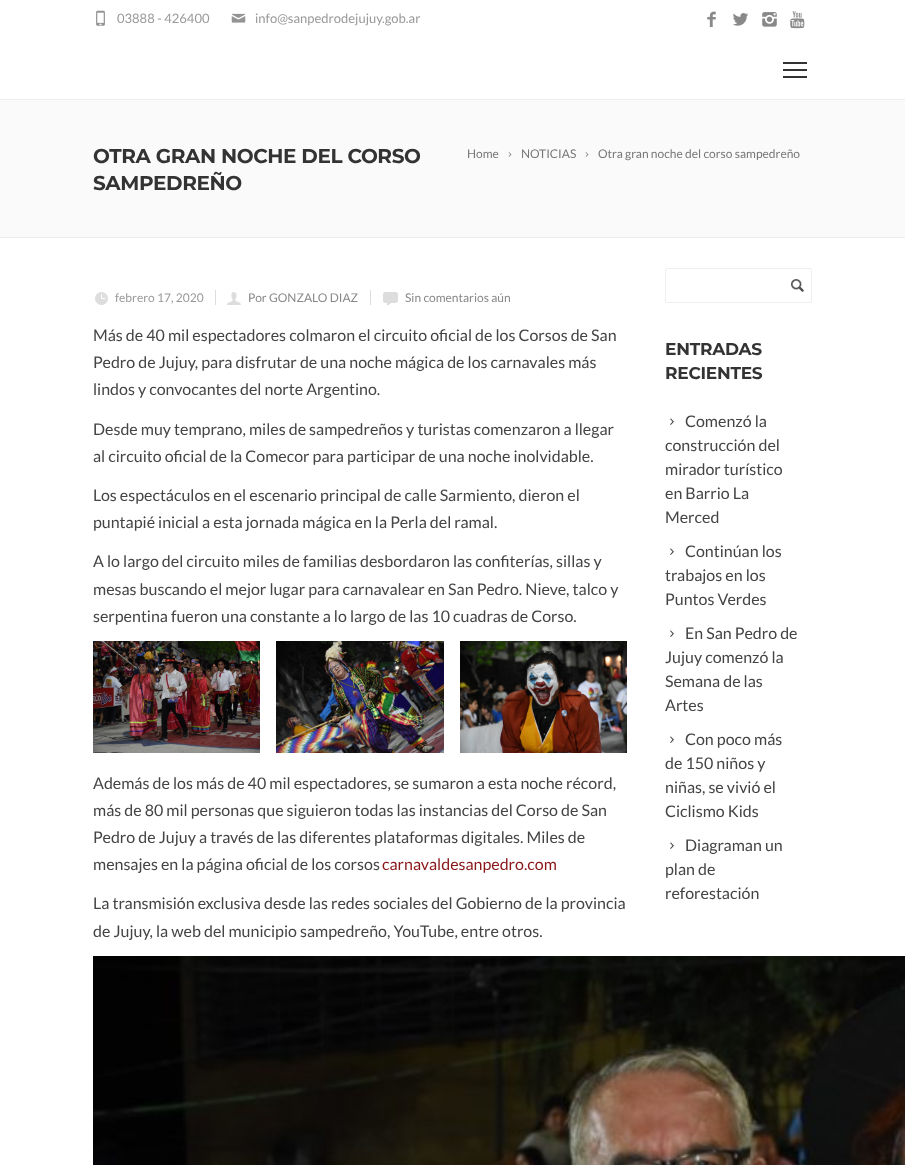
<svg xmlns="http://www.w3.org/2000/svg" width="905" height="1165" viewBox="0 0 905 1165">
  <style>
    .t1 { font: 13px Lato; fill: #999; }
    .t2 { font: bold 20px Montserrat; letter-spacing: -0.4px; fill: #333; }
    .t3 { font: 12px Lato; fill: #777; }
    .t4 { font: 12px Lato; fill: #999; }
    .t5 { font: 12px Lato; fill: #888; }
    .t6 { font: 16px Lato; fill: #444; }
    .t7 { font: 16px Lato; fill: #891719; }
    .t8 { font: bold 17px Montserrat; letter-spacing: -0.25px; fill: #333; }
  </style>
  <rect width="100%" height="100%" fill="#fff"/>
  <rect x="-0.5" y="-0.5" width="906" height="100" fill="none" stroke="#eee"/>
  <image x="96" y="10" width="9" height="16" href="images/1.png"/>
  <text x="117" y="23" class="t1">03888 - 426400</text>
  <image x="231" y="13" width="15" height="10" href="images/2.png"/>
  <text x="255" y="23" class="t1">info@sanpedrodejujuy.gob.ar</text>
  <image x="707" y="11" width="9" height="16" href="images/3.png"/>
  <image x="733" y="13" width="16" height="13" href="images/4.png"/>
  <image x="762" y="12" width="15" height="15" href="images/5.png"/>
  <image x="790" y="11" width="15" height="18" href="images/6.png"/>
  <rect x="783" y="62" width="24" height="2" fill="#333"/>
  <rect x="783" y="69" width="24" height="2" fill="#333"/>
  <rect x="783" y="76" width="24" height="2" fill="#333"/>
  <rect x="0" y="100" width="905" height="137" fill="#fafafa"/>
  <rect x="0" y="237" width="905" height="1" fill="#eee"/>
  <text x="93" y="163" class="t2">OTRA GRAN NOCHE DEL CORSO</text>
  <text x="93" y="190" class="t2">SAMPEDREÑO</text>
  <text x="467" y="158" class="t3">Home</text>
  <image x="508" y="152" width="4" height="5" href="images/7.png"/>
  <text x="521" y="158" class="t3">NOTICIAS</text>
  <image x="585" y="152" width="4" height="5" href="images/7.png"/>
  <text x="598" y="158" class="t3">Otra gran noche del corso sampedreño</text>
  <image x="95" y="292" width="13" height="13" href="images/8.png"/>
  <text x="115" y="302" class="t4">febrero 17, 2020</text>
  <rect x="215" y="290" width="1" height="15" fill="#ddd"/>
  <image x="227" y="292" width="14" height="13" href="images/9.png"/>
  <text x="248" y="302" class="t5">Por GONZALO DIAZ</text>
  <rect x="370" y="290" width="1" height="15" fill="#ddd"/>
  <image x="383" y="292" width="15" height="13" href="images/10.png"/>
  <text x="405" y="302" class="t5">Sin comentarios aún</text>
  <text x="93" y="341" class="t6">Más de 40 mil espectadores colmaron el circuito oficial de los Corsos de San</text>
  <text x="93" y="368" class="t6">Pedro de Jujuy, para disfrutar de una noche mágica de los carnavales más</text>
  <text x="93" y="395" class="t6">lindos y convocantes del norte Argentino.</text>
  <text x="93" y="435" class="t6">Desde muy temprano, miles de sampedreños y turistas comenzaron a llegar</text>
  <text x="93" y="462" class="t6">al circuito oficial de la Comecor para participar de una noche inolvidable.</text>
  <text x="93" y="501" class="t6">Los espectáculos en el escenario principal de calle Sarmiento, dieron el</text>
  <text x="93" y="528" class="t6">puntapié inicial a esta jornada mágica en la Perla del ramal.</text>
  <text x="93" y="567" class="t6">A lo largo del circuito miles de familias desbordaron las confiterías, sillas y</text>
  <text x="93" y="595" class="t6">mesas buscando el mejor lugar para carnavalear en San Pedro. Nieve, talco y</text>
  <text x="93" y="622" class="t6">serpentina fueron una constante a lo largo de las 10 cuadras de Corso.</text>
  <image x="93" y="641" width="167" height="112" href="images/11.png"/>
  <image x="276" y="641" width="168" height="112" href="images/12.png"/>
  <image x="460" y="641" width="167" height="112" href="images/13.png"/>
  <text x="93" y="789" class="t6">Además de los más de 40 mil espectadores, se sumaron a esta noche récord,</text>
  <text x="93" y="816" class="t6">más de 80 mil personas que siguieron todas las instancias del Corso de San</text>
  <text x="93" y="843" class="t6">Pedro de Jujuy a través de las diferentes plataformas digitales. Miles de</text>
  <text x="93" y="870" class="t6">mensajes en la página oficial de los corsos</text>
  <text x="382" y="870" class="t7">carnavaldesanpedro.com</text>
  <text x="93" y="909" class="t6">La transmisión exclusiva desde las redes sociales del Gobierno de la provincia</text>
  <text x="93" y="937" class="t6">de Jujuy, la web del municipio sampedreño, YouTube, entre otros.</text>
  <image x="93" y="956" width="812" height="209" href="images/14.png"/>
  <image x="791" y="279" width="13" height="13" href="images/15.png"/>
  <rect x="665.5" y="268.5" width="146" height="34" rx="1.5" fill="none" stroke="#eee"/>
  <text x="665" y="355" class="t8">ENTRADAS</text>
  <text x="665" y="379" class="t8">RECIENTES</text>
  <image x="670" y="418" width="4" height="7" href="images/16.png"/>
  <text x="685" y="427" class="t6">Comenzó la</text>
  <text x="665" y="451" class="t6">construcción del</text>
  <text x="665" y="475" class="t6">mirador turístico</text>
  <text x="665" y="499" class="t6">en Barrio La</text>
  <text x="665" y="523" class="t6">Merced</text>
  <image x="670" y="548" width="4" height="7" href="images/16.png"/>
  <text x="685" y="557" class="t6">Continúan los</text>
  <text x="665" y="581" class="t6">trabajos en los</text>
  <text x="665" y="605" class="t6">Puntos Verdes</text>
  <image x="670" y="630" width="4" height="7" href="images/16.png"/>
  <text x="685" y="639" class="t6">En San Pedro de</text>
  <text x="665" y="663" class="t6">Jujuy comenzó la</text>
  <text x="665" y="687" class="t6">Semana de las</text>
  <text x="665" y="711" class="t6">Artes</text>
  <image x="670" y="736" width="4" height="7" href="images/16.png"/>
  <text x="685" y="745" class="t6">Con poco más</text>
  <text x="665" y="769" class="t6">de 150 niños y</text>
  <text x="665" y="793" class="t6">niñas, se vivió el</text>
  <text x="665" y="817" class="t6">Ciclismo Kids</text>
  <image x="670" y="842" width="4" height="7" href="images/16.png"/>
  <text x="685" y="851" class="t6">Diagraman un</text>
  <text x="665" y="875" class="t6">plan de</text>
  <text x="665" y="899" class="t6">reforestación</text>
</svg>
